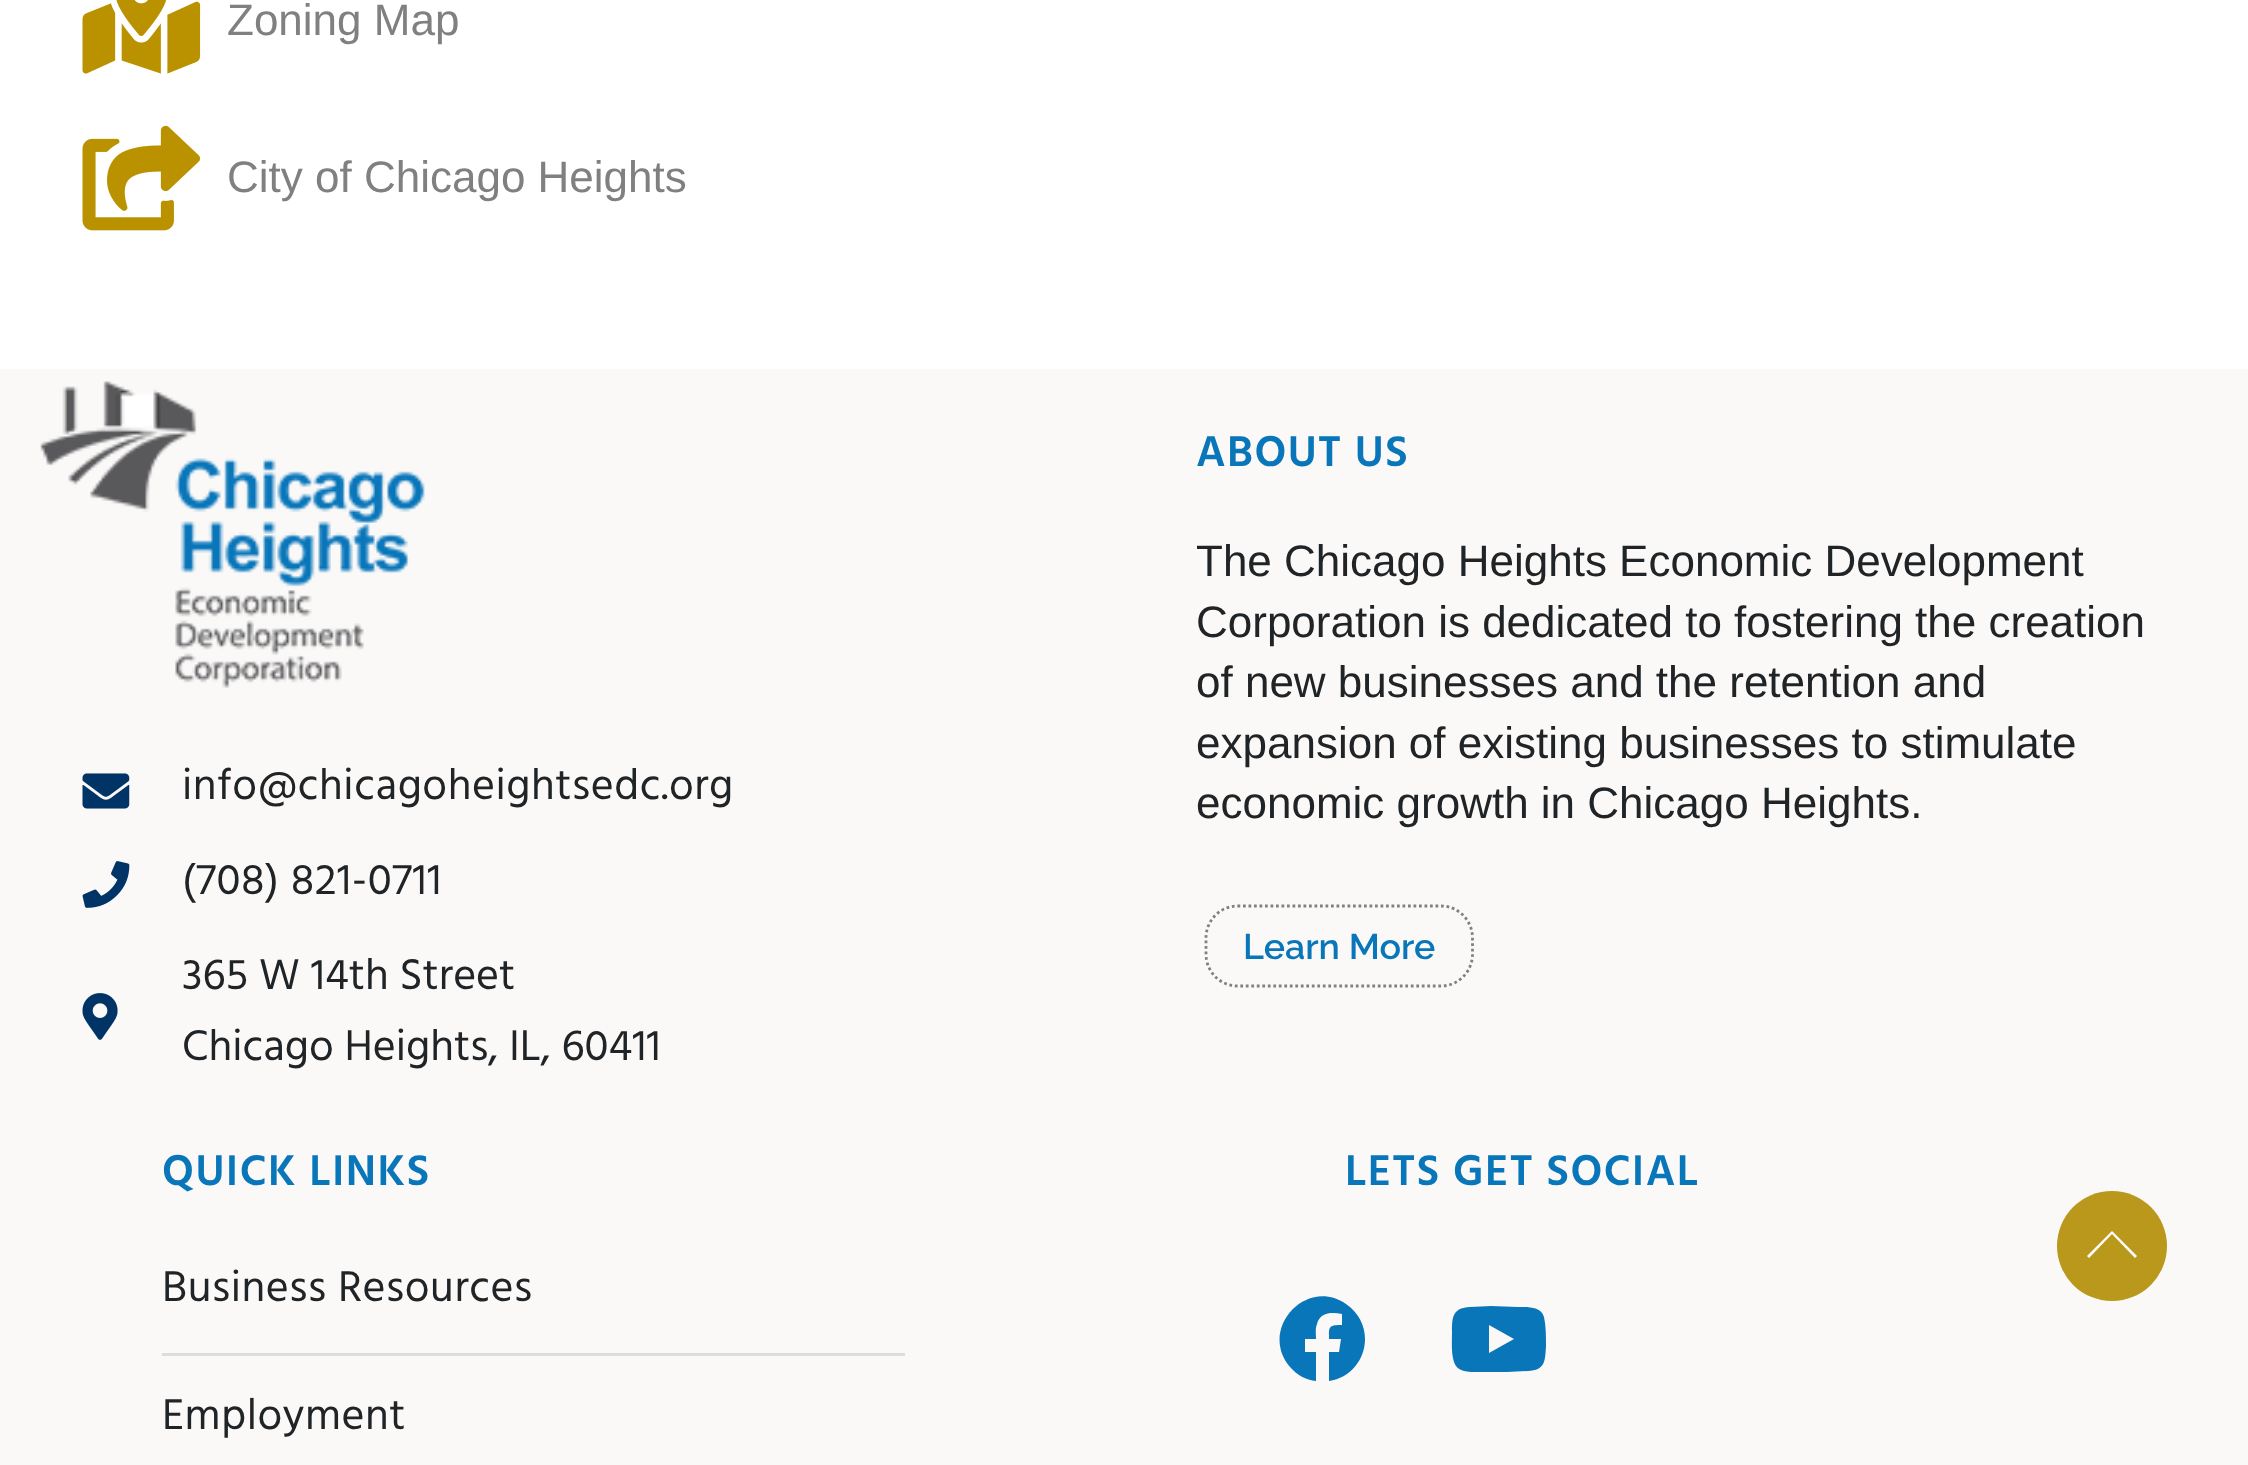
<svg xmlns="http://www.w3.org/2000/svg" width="2248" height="1465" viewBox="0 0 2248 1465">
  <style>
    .t1 { font: 44px Liberation Sans; fill: #808080; }
    .t2 { font: 44px Hind; letter-spacing: 0.55px; fill: #212427; }
    .t3 { font: 44px Hind; fill: #212427; }
    .t4 { font: 600 44px Hind; letter-spacing: 1.4px; fill: #0a76ba; }
    .t5 { font: 44px Liberation Sans; fill: #212427; }
    .t6 { font: 600 35.75px Raleway; fill: #0a76ba; }
  </style>
  <rect width="100%" height="100%" fill="#fff"/>
  <image x="82" y="0" width="119" height="74" href="images/1.png"/>
  <text x="227" y="35" class="t1">Zoning Map</text>
  <image x="82" y="125" width="119" height="106" href="images/2.png"/>
  <text x="227" y="192" class="t1">City of Chicago Heights</text>
  <rect x="0" y="369" width="2248" height="1096" fill="#faf9f8"/>
  <image x="40" y="381" width="385" height="307" href="images/3.png"/>
  <image x="82" y="773" width="48" height="36" href="images/4.png"/>
  <text x="182" y="799" class="t2">info@chicagoheightsedc.org</text>
  <image x="82" y="861" width="48" height="47" href="images/5.png"/>
  <text x="182" y="894" class="t2">(708) 821-0711</text>
  <image x="82" y="993" width="36" height="47" href="images/6.png"/>
  <text x="182" y="989" class="t3">365 W 14th Street</text>
  <text x="182" y="1060" class="t3">Chicago Heights, IL, 60411</text>
  <text x="1196" y="466" class="t4">ABOUT US</text>
  <text x="1196" y="576" class="t5">The Chicago Heights Economic Development</text>
  <text x="1196" y="637" class="t5">Corporation is dedicated to fostering the creation</text>
  <text x="1196" y="697" class="t5">of new businesses and the retention and</text>
  <text x="1196" y="758" class="t5">expansion of existing businesses to stimulate</text>
  <text x="1196" y="818" class="t5">economic growth in Chicago Heights.</text>
  <path d="M1237.5 906H1441C1458.5 906 1472.5 920.5 1472.5 938V954C1472.5 971.5 1458.5 986 1441 986H1237.5C1220 986 1206 971.5 1206 954V938C1206 920.5 1220 906 1237.5 906Z" fill="none" stroke="#808080" stroke-width="2.8" stroke-dasharray="2.75 2.75"/>
  <text x="1243" y="959" class="t6">Learn More</text>
  <text x="162" y="1185" class="t4">QUICK LINKS</text>
  <text x="162" y="1301" class="t2">Business Resources</text>
  <rect x="162" y="1353" width="743" height="3" fill="#ddd"/>
  <text x="162" y="1429" class="t2">Employment</text>
  <text x="1345" y="1185" class="t4">LETS GET SOCIAL</text>
  <path d="M1365 1339C1365 1360 1350 1378 1329 1381V1352H1339L1341 1339H1329C1329 1327 1328 1325 1342 1325V1314C1332 1312 1320 1312 1317 1324C1315 1329 1316 1334 1316 1339H1305V1352H1316V1381C1306 1380 1297 1375 1290 1367C1258 1330 1306 1276 1346 1304C1358 1312 1365 1325 1365 1339Z" fill="#0a76ba"/>
  <path d="M1544 1317C1546 1326 1546 1337 1546 1346C1545 1362 1545 1370 1528 1371L1507 1372H1479C1471 1372 1457 1373 1454 1362C1451 1353 1452 1342 1452 1332C1452 1316 1453 1308 1470 1307L1491 1306L1518 1307C1527 1307 1541 1306 1544 1317ZM1489 1353L1514 1339L1489 1325Z" fill="#0a76ba"/>
  <circle cx="2112" cy="1246" r="55" fill="#ba981c"/>
  <path d="M2135 1258L2112 1234L2089 1258L2087 1256L2112 1231L2137 1256Z" fill="#fff"/>
</svg>
